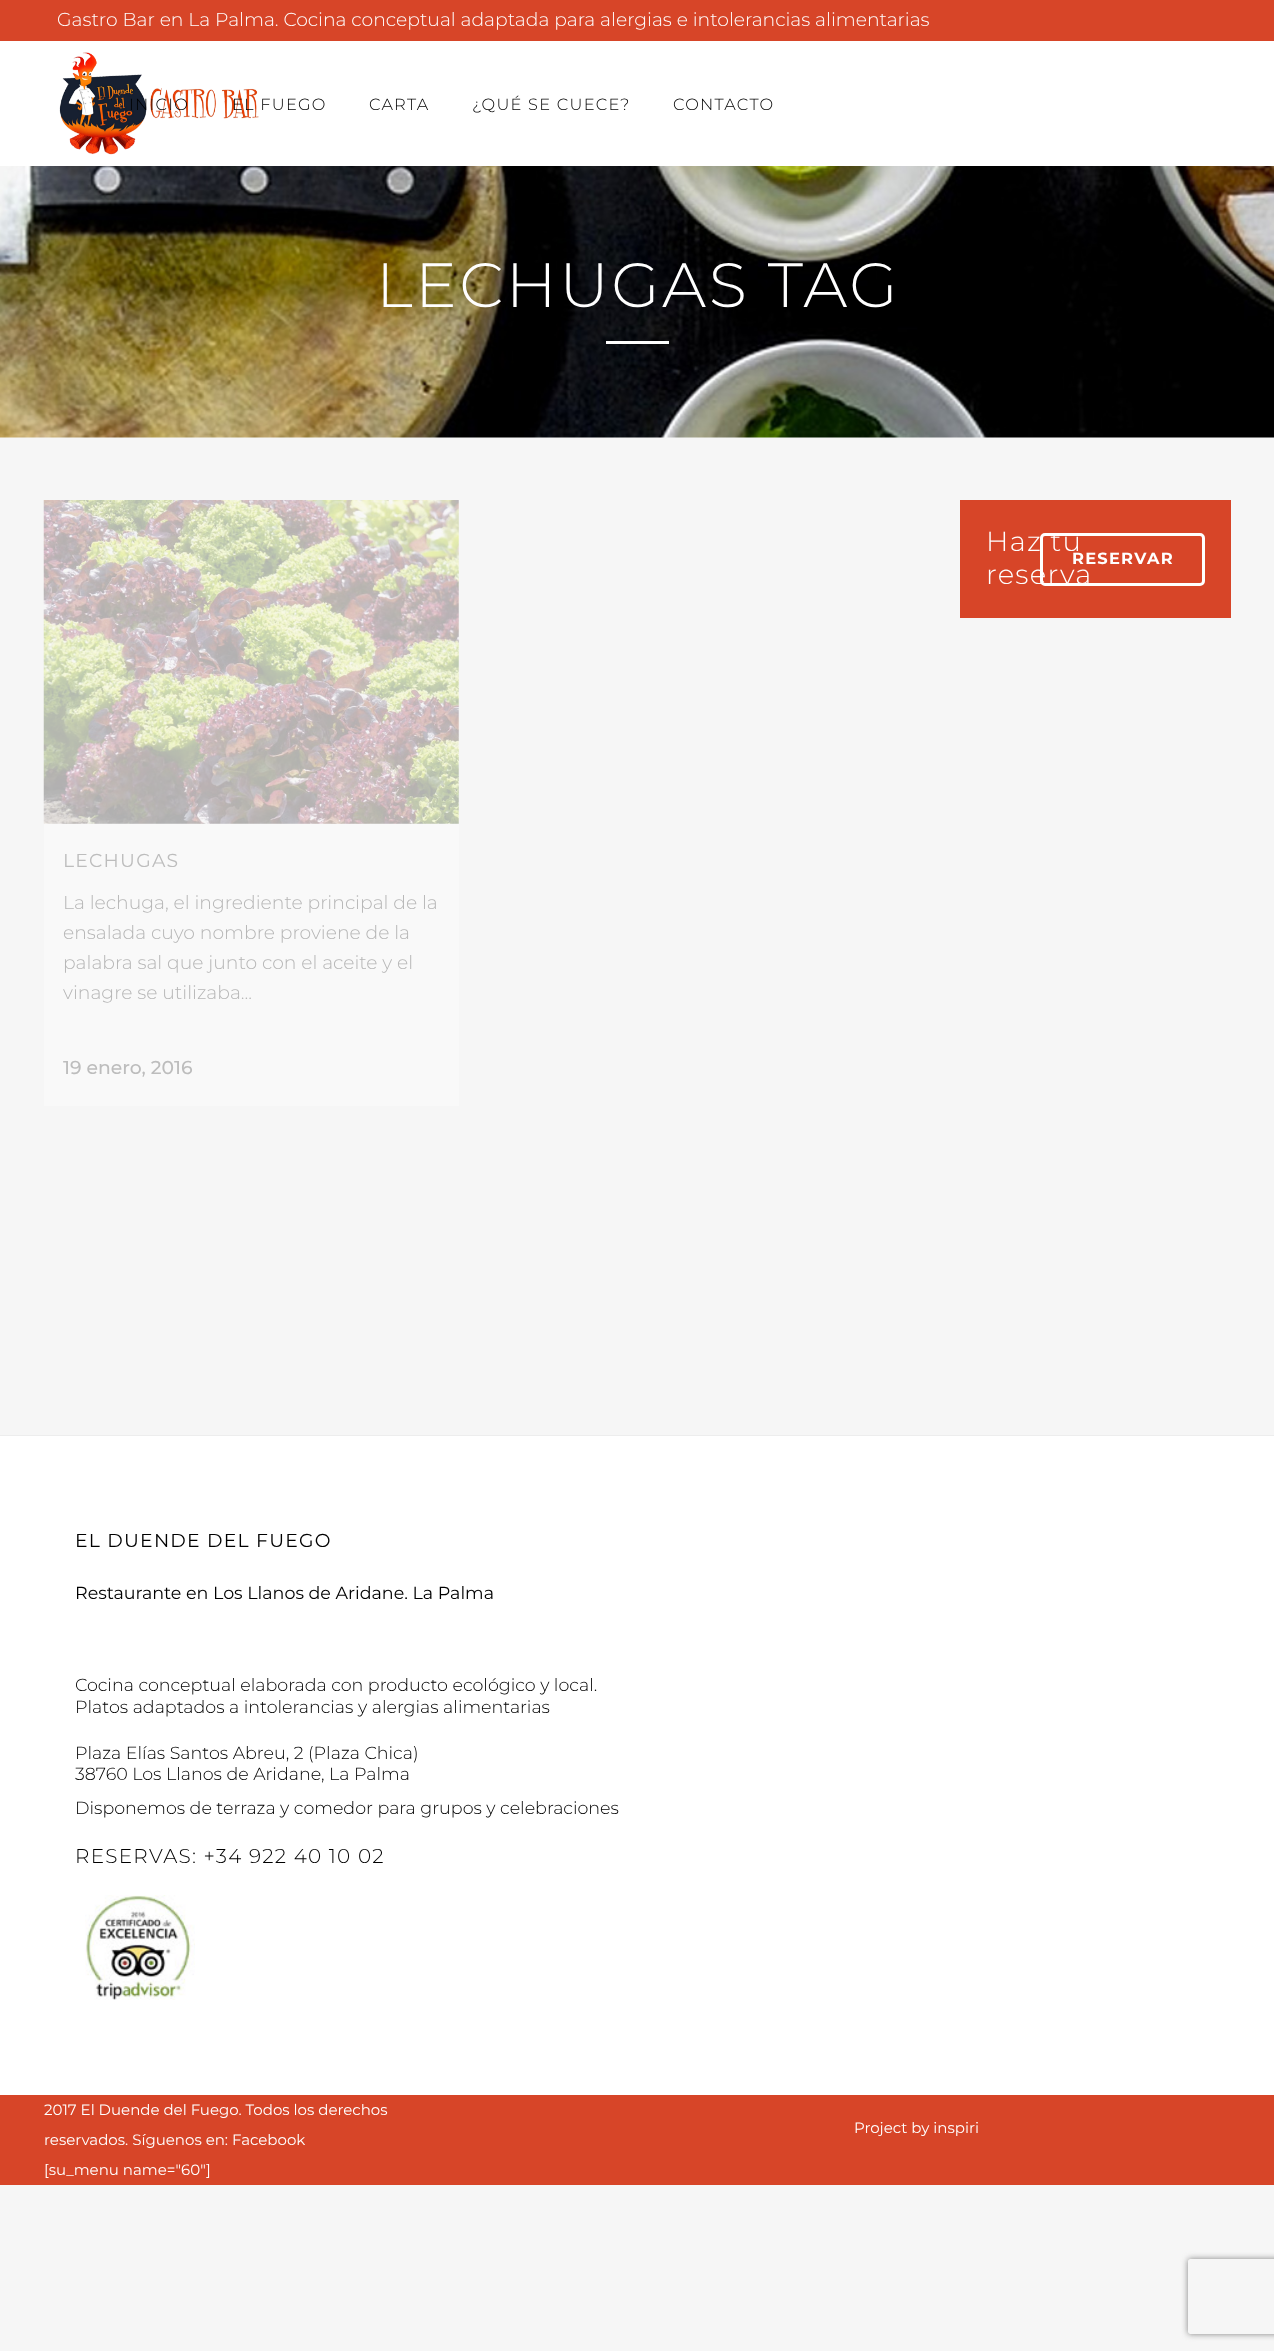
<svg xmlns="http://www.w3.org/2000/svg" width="1274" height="2351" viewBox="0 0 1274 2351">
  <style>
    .t1 { font: 300 18.75px Montserrat; fill: #fff; }
    .t2 { font: 300 16.25px Montserrat; letter-spacing: 1.25px; fill: #000; }
    .t3 { font: 300 62.5px Montserrat; letter-spacing: 2.5px; fill: #fff; }
    .t4 { font: 300 27.5px Montserrat; letter-spacing: 1.25px; fill: #fff; }
    .t5 { font: bold 16.25px Montserrat; letter-spacing: 1.25px; fill: #fff; }
    .t6 { font: 18.75px Montserrat; letter-spacing: 1.25px; fill: #bdbdbd; }
    .t7 { font: 300 18.75px Montserrat; fill: #b6b6b6; }
    .t8 { font: 500 18.75px Montserrat; fill: #bdbdbd; }
    .t9 { font: 18.75px Montserrat; letter-spacing: 1.25px; fill: #000; }
    .t10 { font: 17.5px Montserrat; fill: #000; }
    .t11 { font: 300 17.5px Montserrat; fill: #000; }
    .t12 { font: 300 20px Montserrat; letter-spacing: 1.25px; fill: #000; }
    .t13 { font: 15px Montserrat; fill: #fff; }
  </style>
  <defs>
    <clipPath id="clip1"><path d="M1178 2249H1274V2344H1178ZM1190.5 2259H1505.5C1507 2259 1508 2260 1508 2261.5V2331.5C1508 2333 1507 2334 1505.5 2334H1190.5C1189 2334 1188 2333 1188 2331.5V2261.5C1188 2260 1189 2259 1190.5 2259Z" clip-rule="evenodd"/></clipPath>
  </defs>
  <rect width="100%" height="100%" fill="#f6f6f6"/>
  <rect x="0" y="0" width="1274" height="41" fill="#d74528"/>
  <text x="57" y="26" class="t1">Gastro Bar en La Palma. Cocina conceptual adaptada para alergias e intolerancias alimentarias</text>
  <rect x="0" y="41" width="1274" height="125" fill="#fff"/>
  <image x="59" y="52" width="200" height="103" href="images/1.png"/>
  <text x="129" y="110" class="t2">INICIO</text>
  <text x="232" y="110" class="t2">EL FUEGO</text>
  <text x="369" y="110" class="t2">CARTA</text>
  <text x="472" y="110" class="t2">¿QUÉ SE CUECE?</text>
  <text x="673" y="110" class="t2">CONTACTO</text>
  <image x="0" y="166" width="1274" height="272" href="images/2.png"/>
  <text x="376" y="307" class="t3">LECHUGAS TAG</text>
  <rect x="606" y="341" width="63" height="3" fill="#fff"/>
  <rect x="960" y="500" width="271" height="118" fill="#d74528"/>
  <text x="986" y="551" class="t4">Haz tu</text>
  <text x="986" y="584" class="t4">reserva</text>
  <rect x="1041.5" y="534.5" width="162" height="50" rx="3.5" fill="none" stroke="#fff" stroke-width="3"/>
  <text x="1072" y="564" class="t5">RESERVAR</text>
  <image x="43" y="500" width="416" height="324" href="images/3.png"/>
  <rect x="44" y="824" width="415" height="282" fill="#f9f9f9"/>
  <text x="63" y="867" class="t6">LECHUGAS</text>
  <text x="63" y="909" class="t7">La lechuga, el ingrediente principal de la</text>
  <text x="63" y="939" class="t7">ensalada cuyo nombre proviene de la</text>
  <text x="63" y="969" class="t7">palabra sal que junto con el aceite y el</text>
  <text x="63" y="999" class="t7">vinagre se utilizaba...</text>
  <text x="63" y="1074" class="t8">19 enero, 2016</text>
  <rect x="0" y="1436" width="1274" height="659" fill="#fff"/>
  <rect x="0" y="1435" width="1274" height="1" fill="#ededed"/>
  <text x="75" y="1547" class="t9">EL DUENDE DEL FUEGO</text>
  <text x="75" y="1599" class="t10">Restaurante en Los Llanos de Aridane. La Palma</text>
  <text x="75" y="1691" class="t11">Cocina conceptual elaborada con producto ecológico y local.</text>
  <text x="75" y="1713" class="t11">Platos adaptados a intolerancias y alergias alimentarias</text>
  <text x="75" y="1759" class="t11">Plaza Elías Santos Abreu, 2 (Plaza Chica)</text>
  <text x="75" y="1780" class="t11">38760 Los Llanos de Aridane, La Palma</text>
  <text x="75" y="1814" class="t11">Disponemos de terraza y comedor para grupos y celebraciones</text>
  <text x="75" y="1863" class="t12">RESERVAS: +34 922 40 10 02</text>
  <image x="85" y="1895" width="110" height="105" href="images/4.png"/>
  <rect x="0" y="2095" width="1274" height="90" fill="#d74528"/>
  <text x="44" y="2115" class="t13">2017 El Duende del Fuego. Todos los derechos</text>
  <text x="44" y="2145" class="t13">reservados. Síguenos en: Facebook</text>
  <text x="44" y="2175" class="t13">[su_menu name="60"]</text>
  <text x="854" y="2133" class="t13">Project by inspiri</text>
  <g clip-path="url(#clip1)">
    <rect x="1188" y="2259" width="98" height="75" rx="2.5" fill="#808080" filter="blur(3px)"/>
  </g>
</svg>
